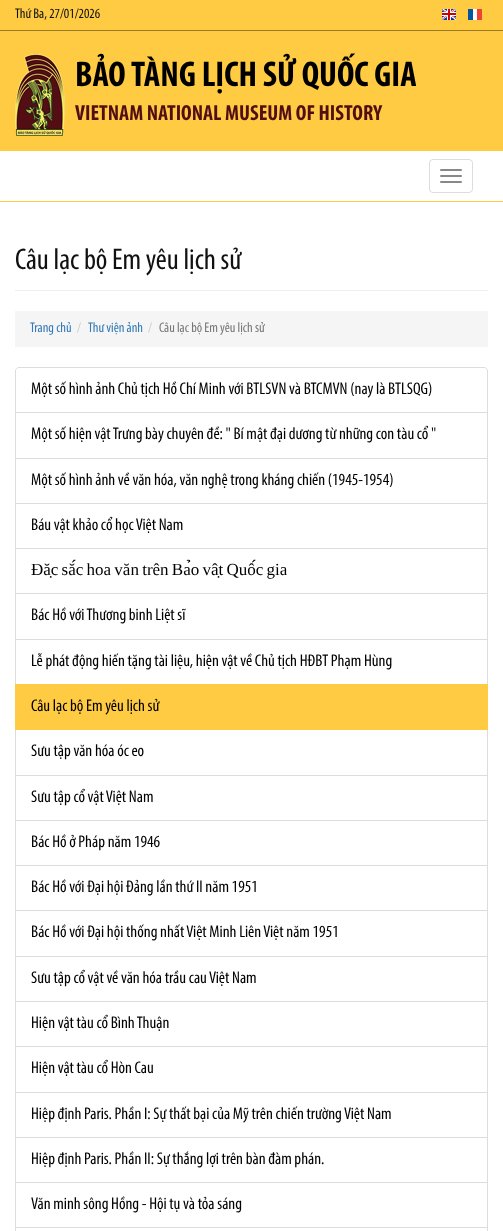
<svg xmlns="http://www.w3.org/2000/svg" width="503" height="1231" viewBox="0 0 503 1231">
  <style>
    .t1 { font: 14px Myriad; fill: #111; }
    .t2 { font: bold 36px Myriad; fill: #000; }
    .t3 { font: bold 22px Myriad; fill: #530e13; }
    .t4 { font: 30px Myriad; fill: #111; }
    .t5 { font: 14px Myriad; fill: #337ab7; }
    .t6 { font: 14px Myriad; fill: #ccc; }
    .t7 { font: 14px Myriad; fill: #777; }
    .t8 { font: 17px Myriad; fill: #000; }
    .t9 { font: 17px Liberation Serif; fill: #000; }
  </style>
  <rect width="100%" height="100%" fill="#fff"/>
  <rect x="0" y="0" width="503" height="30" fill="#ffcb43"/>
  <rect x="0" y="30" width="503" height="1" fill="#9a7b28"/>
  <text x="15" y="18" class="t1">Thứ Ba, 27/01/2026</text>
  <image x="442" y="9" width="14" height="11" href="images/1.png"/>
  <image x="468" y="9" width="14" height="11" href="images/2.png"/>
  <rect x="0" y="31" width="503" height="120" fill="#ffcb43"/>
  <image x="15" y="54" width="50" height="82" href="images/3.png"/>
  <text x="75" y="86" class="t2">BẢO TÀNG LỊCH SỬ QUỐC GIA</text>
  <text x="75" y="120" class="t3">VIETNAM NATIONAL MUSEUM OF HISTORY</text>
  <rect x="0" y="201" width="503" height="1" fill="#ffcb43"/>
  <rect x="429.5" y="159.5" width="43" height="33" rx="3.5" fill="none" stroke="#ddd"/>
  <rect x="440" y="169" width="22" height="2" rx="1" fill="#888"/>
  <rect x="440" y="175" width="22" height="2" rx="1" fill="#888"/>
  <rect x="440" y="181" width="22" height="2" rx="1" fill="#888"/>
  <rect x="15" y="290" width="473" height="1" fill="#eee"/>
  <text x="15" y="269" class="t4">Câu lạc bộ Em yêu lịch sử</text>
  <rect x="15" y="311" width="473" height="36" fill="#f5f5f5"/>
  <text x="30" y="332" class="t5">Trang chủ</text>
  <text x="77" y="332" class="t6">/</text>
  <text x="88" y="332" class="t5">Thư viện ảnh</text>
  <text x="148" y="332" class="t6">/</text>
  <text x="159" y="332" class="t7">Câu lạc bộ Em yêu lịch sử</text>
  <path d="M19 367.5H484C486 367.5 487.5 369 487.5 371V412.5H15.5V371C15.5 369 17 367.5 19 367.5Z" fill="none" stroke="#ddd"/>
  <text x="31" y="394" class="t8">Một số hình ảnh Chủ tịch Hồ Chí Minh với BTLSVN và BTCMVN (nay là BTLSQG)</text>
  <rect x="15.5" y="412.5" width="472" height="46" fill="none" stroke="#ddd"/>
  <text x="31" y="439" class="t8">Một số hiện vật Trưng bày chuyên đề: " Bí mật đại dương từ những con tàu cổ "</text>
  <rect x="15.5" y="458.5" width="472" height="45" fill="none" stroke="#ddd"/>
  <text x="31" y="485" class="t8">Một số hình ảnh về văn hóa, văn nghệ trong kháng chiến (1945-1954)</text>
  <rect x="15.5" y="503.5" width="472" height="45" fill="none" stroke="#ddd"/>
  <text x="31" y="530" class="t8">Báu vật khảo cổ học Việt Nam</text>
  <rect x="15.5" y="548.5" width="472" height="45" fill="none" stroke="#ddd"/>
  <text x="31" y="575" word-spacing="-1" class="t9">Đặc sắc hoa văn trên Bảo vật Quốc gia</text>
  <rect x="15.5" y="593.5" width="472" height="46" fill="none" stroke="#ddd"/>
  <text x="31" y="620" class="t8">Bác Hồ với Thương binh Liệt sĩ</text>
  <rect x="15.5" y="639.5" width="472" height="45" fill="none" stroke="#ddd"/>
  <text x="31" y="666" class="t8">Lễ phát động hiến tặng tài liệu, hiện vật về Chủ tịch HĐBT Phạm Hùng</text>
  <rect x="15.5" y="729.5" width="472" height="46" fill="none" stroke="#ddd"/>
  <rect x="15" y="684" width="473" height="46" fill="#ffcb43"/>
  <text x="31" y="711" class="t8">Câu lạc bộ Em yêu lịch sử</text>
  <text x="31" y="756" class="t8">Sưu tập văn hóa óc eo</text>
  <rect x="15.5" y="775.5" width="472" height="45" fill="none" stroke="#ddd"/>
  <text x="31" y="802" class="t8">Sưu tập cổ vật Việt Nam</text>
  <rect x="15.5" y="820.5" width="472" height="45" fill="none" stroke="#ddd"/>
  <text x="31" y="847" class="t8">Bác Hồ ở Pháp năm 1946</text>
  <rect x="15.5" y="865.5" width="472" height="45" fill="none" stroke="#ddd"/>
  <text x="31" y="892" class="t8">Bác Hồ với Đại hội Đảng lần thứ II năm 1951</text>
  <rect x="15.5" y="910.5" width="472" height="46" fill="none" stroke="#ddd"/>
  <text x="31" y="937" class="t8">Bác Hồ với Đại hội thống nhất Việt Minh Liên Việt năm 1951</text>
  <rect x="15.5" y="956.5" width="472" height="45" fill="none" stroke="#ddd"/>
  <text x="31" y="983" class="t8">Sưu tập cổ vật về văn hóa trầu cau Việt Nam</text>
  <rect x="15.5" y="1001.5" width="472" height="45" fill="none" stroke="#ddd"/>
  <text x="31" y="1028" class="t8">Hiện vật tàu cổ Bình Thuận</text>
  <rect x="15.5" y="1046.5" width="472" height="46" fill="none" stroke="#ddd"/>
  <text x="31" y="1073" class="t8">Hiện vật tàu cổ Hòn Cau</text>
  <rect x="15.5" y="1092.5" width="472" height="45" fill="none" stroke="#ddd"/>
  <text x="31" y="1119" class="t8">Hiệp định Paris. Phần I: Sự thất bại của Mỹ trên chiến trường Việt Nam</text>
  <rect x="15.5" y="1137.5" width="472" height="45" fill="none" stroke="#ddd"/>
  <text x="31" y="1164" class="t8">Hiệp định Paris. Phần II: Sự thắng lợi trên bàn đàm phán.</text>
  <rect x="15.5" y="1182.5" width="472" height="45" fill="none" stroke="#ddd"/>
  <text x="31" y="1209" class="t8">Văn minh sông Hồng - Hội tụ và tỏa sáng</text>
  <rect x="15.5" y="1227.5" width="472" height="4" fill="none" stroke="#ddd"/>
</svg>
